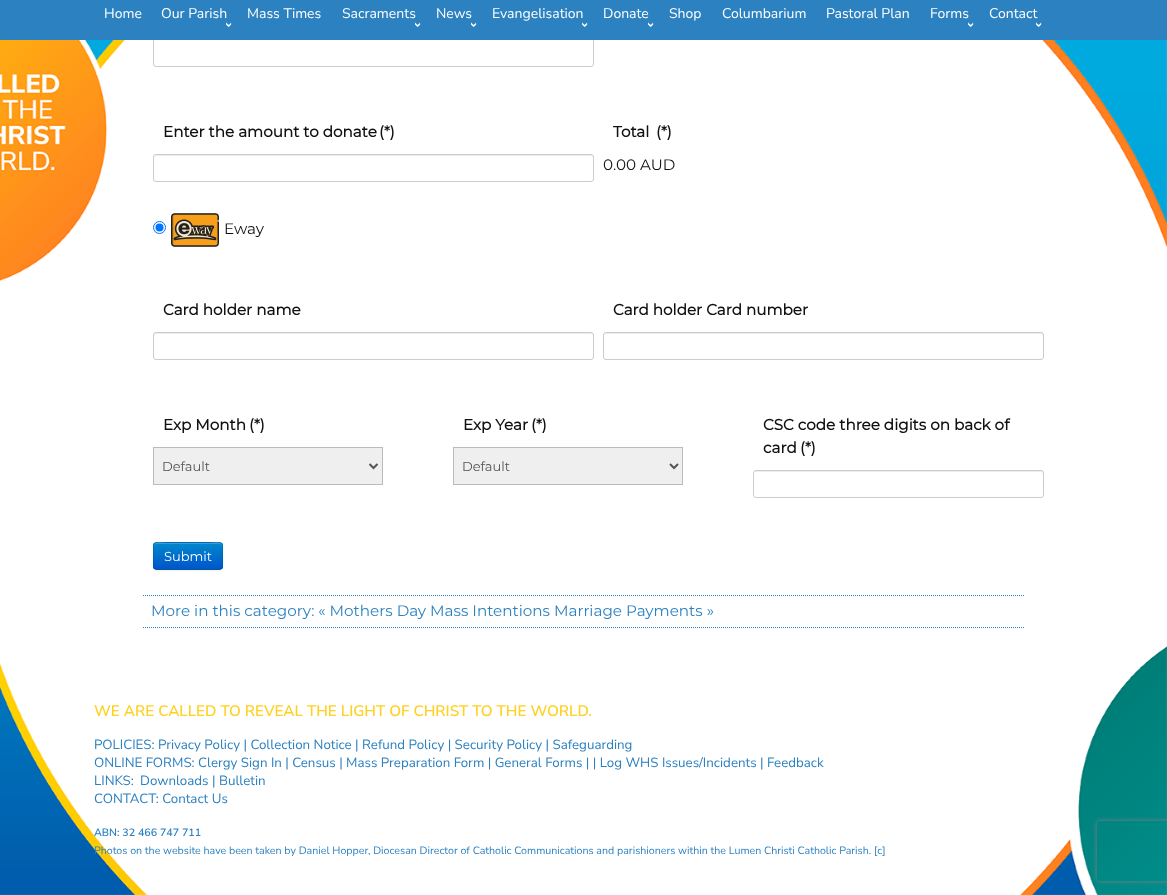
<svg xmlns="http://www.w3.org/2000/svg" width="1167" height="895" viewBox="0 0 1167 895">
  <style>
    .t1 { font: 14px Nunito Sans; fill: #fff; }
    .t2 { font: bold 15.2px Montserrat; fill: #111; }
    .t3 { font: 100 15.2px Montserrat; fill: #111; }
    .t4 { font: 100 13px Montserrat; fill: #555; }
    .t5 { font: 100 13px Montserrat; fill: #fff; }
    .t6 { font: 100 15.2px Montserrat; fill: #2c81c0; }
    .t7 { font: 600 15.2px Nunito Sans; fill: #fed123; }
    .t8 { font: 13.33px Nunito Sans; fill: #2c81c0; }
    .t9 { font: 600 10.67px Nunito Sans; fill: #2c81c0; }
    .t10 { font: 10.67px Nunito Sans; fill: #2c81c0; }
  </style>
  <defs>
    <clipPath id="clip1"><rect x="153" y="542" width="70" height="28" rx="4"/></clipPath>
    <linearGradient id="g1" gradientUnits="userSpaceOnUse" x1="188" y1="543" x2="188" y2="569"><stop offset="0" stop-color="#08c"/><stop offset="1" stop-color="#05c"/></linearGradient>
    <clipPath id="clip2"><path d="M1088 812H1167V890H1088ZM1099 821H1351C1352 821 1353 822 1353 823V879C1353 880 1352 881 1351 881H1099C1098 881 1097 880 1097 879V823C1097 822 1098 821 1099 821Z" clip-rule="evenodd"/></clipPath>
  </defs>
  <rect width="100%" height="100%" fill="#fff"/>
  <image x="0" y="40" width="1167" height="855" href="images/1.png"/>
  <rect x="153.5" y="-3.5" width="440" height="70" rx="2.5" fill="none" stroke="#ccc"/>
  <rect x="0" y="0" width="1167" height="40" fill="#2c81c0"/>
  <text x="104" y="18" class="t1">Home</text>
  <text x="161" y="18" class="t1">Our Parish</text>
  <image x="226" y="22" width="6" height="6" href="images/2.png"/>
  <text x="247" y="18" class="t1">Mass Times</text>
  <text x="342" y="18" class="t1">Sacraments</text>
  <image x="415" y="22" width="6" height="6" href="images/2.png"/>
  <text x="436" y="18" class="t1">News</text>
  <image x="471" y="22" width="6" height="6" href="images/2.png"/>
  <text x="492" y="18" class="t1">Evangelisation</text>
  <image x="582" y="22" width="6" height="6" href="images/2.png"/>
  <text x="603" y="18" class="t1">Donate</text>
  <image x="648" y="22" width="6" height="6" href="images/2.png"/>
  <text x="669" y="18" class="t1">Shop</text>
  <text x="722" y="18" class="t1">Columbarium</text>
  <text x="826" y="18" class="t1">Pastoral Plan</text>
  <text x="930" y="18" class="t1">Forms</text>
  <image x="968" y="22" width="6" height="6" href="images/2.png"/>
  <text x="989" y="18" class="t1">Contact</text>
  <image x="1036" y="22" width="6" height="6" href="images/2.png"/>
  <text x="163" y="137" class="t2">Enter the amount to donate</text>
  <text x="379" y="137" class="t2">(*)</text>
  <path d="M156 156H591C592 156 593 157 593 158C593 157 593 155 591 155H156L154 156V158C154 157 155 156 156 156Z" fill="#ececec"/>
  <rect x="153.5" y="154.5" width="440" height="27" rx="2.5" fill="none" stroke="#ccc"/>
  <circle cx="159.5" cy="227.5" r="6" fill="none" stroke="#0075ff"/>
  <circle cx="159.5" cy="227.5" r="4" fill="#0075ff"/>
  <image x="171" y="213" width="48" height="34" href="images/3.png"/>
  <text x="224" y="234" class="t3">Eway</text>
  <text x="613" y="137" class="t2">Total</text>
  <text x="656" y="137" class="t2">(*)</text>
  <text x="603" y="170" class="t3">0.00 AUD</text>
  <text x="163" y="315" class="t2">Card holder name</text>
  <path d="M156 334H591C592 334 593 335 593 336C593 335 593 333 591 333H156L154 334V336C154 335 155 334 156 334Z" fill="#ececec"/>
  <rect x="153.5" y="332.5" width="440" height="27" rx="2.5" fill="none" stroke="#ccc"/>
  <text x="613" y="315" class="t2">Card holder Card number</text>
  <path d="M606 334H1041C1042 334 1043 335 1043 336V334L1041 333H606C604 333 604 335 604 336C604 335 605 334 606 334Z" fill="#ececec"/>
  <rect x="603.5" y="332.5" width="440" height="27" rx="2.5" fill="none" stroke="#ccc"/>
  <text x="163" y="430" class="t2">Exp Month</text>
  <text x="249" y="430" class="t2">(*)</text>
  <rect x="153.5" y="447.5" width="229" height="37" fill="#efefef" stroke="#bbb"/>
  <path d="M369.5 464L373.5 468L377.5 464" fill="none" stroke="#555" stroke-width="2"/>
  <text x="162" y="471" class="t4">Default</text>
  <text x="463" y="430" class="t2">Exp Year</text>
  <text x="531" y="430" class="t2">(*)</text>
  <rect x="453.5" y="447.5" width="229" height="37" fill="#efefef" stroke="#bbb"/>
  <path d="M670 464L674 468L678 464" fill="none" stroke="#555" stroke-width="2"/>
  <text x="462" y="471" class="t4">Default</text>
  <text x="763" y="430" class="t2">CSC code three digits on back of</text>
  <text x="763" y="453" class="t2">card</text>
  <text x="800" y="453" class="t2">(*)</text>
  <path d="M756 472H1041C1042 472 1043 473 1043 474C1043 473 1043 471 1041 471H755L754 474C754 473 755 472 756 472Z" fill="#ececec"/>
  <rect x="753.5" y="470.5" width="290" height="27" rx="2.5" fill="none" stroke="#ccc"/>
  <rect x="153" y="543" width="70" height="28" rx="4" fill="#0000000d" filter="blur(1px)"/>
  <rect x="153" y="542" width="70" height="28" rx="4" fill="#0074cc"/>
  <g clip-path="url(#clip1)">
    <rect x="153" y="543" width="70" height="26" fill="url(#g1)"/>
  </g>
  <path d="M157 544H219C221 544 222 545 222 547C222 540 213 543 209 543H167C163 543 154 540 154 547C154 545 155 544 157 544Z" fill="#ffffff33"/>
  <path d="M221.5 568.5L219.5 569.5H156.5L154.5 568.5" fill="none" stroke="#00000040"/>
  <path d="M154.5 568.5C152.5 566 153.5 558.5 153.5 556C153.5 540.5 151.5 542.5 167.5 542.5H208.5C224.5 542.5 222.5 540.5 222.5 556C222.5 558.5 223.5 566 221.5 568.5" fill="none" stroke="#0000001a"/>
  <text x="164" y="561" class="t5">Submit</text>
  <path d="M143 595.5H1025" fill="none" stroke="#2c81c0" stroke-dasharray="1 1"/>
  <path d="M143 627.5H1025" fill="none" stroke="#2c81c0" stroke-dasharray="1 1"/>
  <text x="151" y="616" class="t6">More in this category: « Mothers Day Mass Intentions Marriage Payments »</text>
  <text x="94" y="716" class="t7">WE ARE CALLED TO REVEAL THE LIGHT OF CHRIST TO THE WORLD.</text>
  <text x="94" y="749" class="t8">POLICIES: Privacy Policy | Collection Notice | Refund Policy | Security Policy | Safeguarding</text>
  <text x="94" y="767" class="t8">ONLINE FORMS: Clergy Sign In | Census | Mass Preparation Form | General Forms | | Log WHS Issues/Incidents | Feedback</text>
  <text x="94" y="785" class="t8">LINKS:</text>
  <text x="140" y="785" class="t8">Downloads | Bulletin</text>
  <text x="94" y="803" class="t8">CONTACT: Contact Us</text>
  <text x="94" y="836" class="t9">ABN: 32 466 747 711</text>
  <text x="94" y="854" class="t10">Photos on the website have been taken by Daniel Hopper, Diocesan Director of Catholic Communications and parishioners within the Lumen Christi Catholic Parish. [c]</text>
  <g clip-path="url(#clip2)">
    <rect x="1097" y="821" width="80" height="60" rx="2" fill="#808080" filter="blur(2.5px)"/>
  </g>
</svg>
